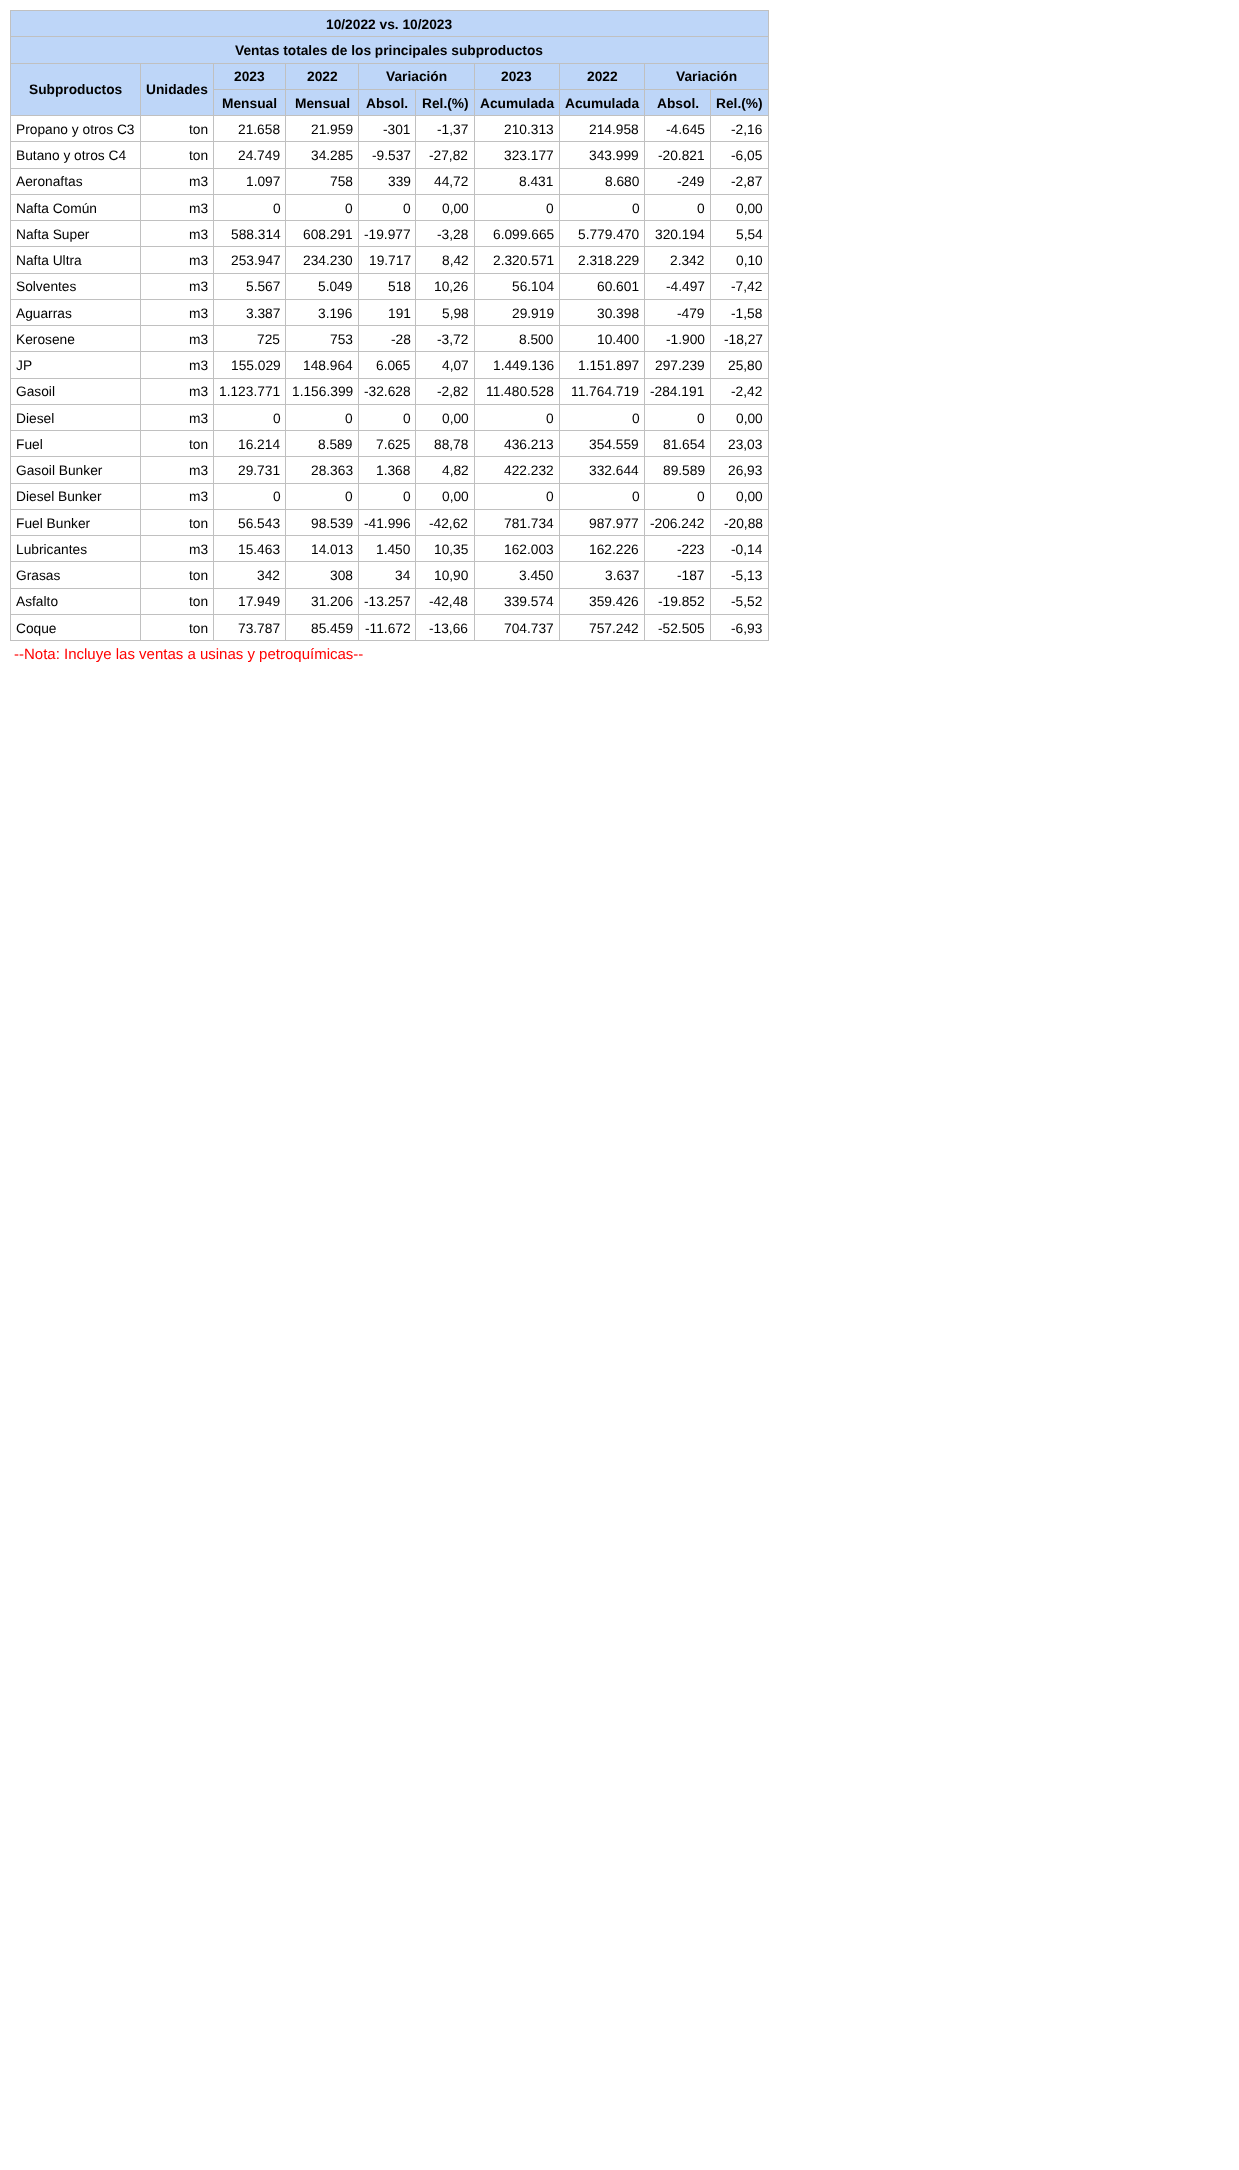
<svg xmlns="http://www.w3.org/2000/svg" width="1239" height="2170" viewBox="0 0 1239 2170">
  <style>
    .t1 { font: bold 13.75px Liberation Sans; fill: #000; }
    .t2 { font: 13.75px Liberation Sans; fill: #000; }
    .t3 { font: 15px Liberation Sans; fill: #f00; }
  </style>
  <rect width="100%" height="100%" fill="#fff"/>
  <rect x="10" y="10" width="759" height="1" fill="#c0c0c0"/>
  <rect x="10" y="10" width="1" height="631" fill="#c0c0c0"/>
  <rect x="11" y="11" width="757" height="104" fill="#bed6f8"/>
  <rect x="10" y="115" width="759" height="1" fill="#c0c0c0"/>
  <rect x="768" y="351" width="1" height="290" fill="#c0c0c0"/>
  <rect x="768" y="10" width="1" height="343" fill="#c0c0c0"/>
  <rect x="10" y="36" width="759" height="1" fill="#c0c0c0"/>
  <text x="326" y="29" class="t1">10/2022 vs. 10/2023</text>
  <rect x="710" y="640" width="59" height="1" fill="#c0c0c0"/>
  <rect x="710" y="614" width="1" height="27" fill="#c0c0c0"/>
  <rect x="710" y="614" width="59" height="1" fill="#c0c0c0"/>
  <rect x="710" y="588" width="1" height="27" fill="#c0c0c0"/>
  <rect x="710" y="588" width="59" height="1" fill="#c0c0c0"/>
  <rect x="710" y="561" width="1" height="28" fill="#c0c0c0"/>
  <rect x="710" y="561" width="59" height="1" fill="#c0c0c0"/>
  <rect x="710" y="535" width="1" height="28" fill="#c0c0c0"/>
  <rect x="710" y="535" width="59" height="1" fill="#c0c0c0"/>
  <rect x="710" y="509" width="1" height="27" fill="#c0c0c0"/>
  <rect x="710" y="509" width="59" height="1" fill="#c0c0c0"/>
  <rect x="710" y="483" width="1" height="27" fill="#c0c0c0"/>
  <rect x="710" y="483" width="59" height="1" fill="#c0c0c0"/>
  <rect x="710" y="456" width="1" height="28" fill="#c0c0c0"/>
  <rect x="710" y="456" width="59" height="1" fill="#c0c0c0"/>
  <rect x="710" y="430" width="1" height="28" fill="#c0c0c0"/>
  <rect x="710" y="430" width="59" height="1" fill="#c0c0c0"/>
  <rect x="710" y="404" width="1" height="27" fill="#c0c0c0"/>
  <rect x="710" y="404" width="59" height="1" fill="#c0c0c0"/>
  <rect x="710" y="378" width="1" height="27" fill="#c0c0c0"/>
  <rect x="710" y="378" width="59" height="1" fill="#c0c0c0"/>
  <rect x="710" y="351" width="1" height="28" fill="#c0c0c0"/>
  <rect x="710" y="351" width="59" height="1" fill="#c0c0c0"/>
  <rect x="710" y="325" width="1" height="28" fill="#c0c0c0"/>
  <rect x="710" y="325" width="59" height="1" fill="#c0c0c0"/>
  <rect x="710" y="299" width="1" height="27" fill="#c0c0c0"/>
  <rect x="710" y="299" width="59" height="1" fill="#c0c0c0"/>
  <rect x="710" y="273" width="1" height="27" fill="#c0c0c0"/>
  <rect x="710" y="273" width="59" height="1" fill="#c0c0c0"/>
  <rect x="710" y="246" width="1" height="28" fill="#c0c0c0"/>
  <rect x="710" y="246" width="59" height="1" fill="#c0c0c0"/>
  <rect x="710" y="220" width="1" height="28" fill="#c0c0c0"/>
  <rect x="710" y="220" width="59" height="1" fill="#c0c0c0"/>
  <rect x="710" y="194" width="1" height="27" fill="#c0c0c0"/>
  <rect x="710" y="194" width="59" height="1" fill="#c0c0c0"/>
  <rect x="710" y="168" width="1" height="27" fill="#c0c0c0"/>
  <rect x="710" y="168" width="59" height="1" fill="#c0c0c0"/>
  <rect x="710" y="141" width="1" height="28" fill="#c0c0c0"/>
  <rect x="710" y="141" width="59" height="1" fill="#c0c0c0"/>
  <rect x="710" y="89" width="1" height="54" fill="#c0c0c0"/>
  <rect x="644" y="640" width="67" height="1" fill="#c0c0c0"/>
  <rect x="644" y="614" width="1" height="27" fill="#c0c0c0"/>
  <rect x="644" y="614" width="67" height="1" fill="#c0c0c0"/>
  <rect x="644" y="588" width="1" height="27" fill="#c0c0c0"/>
  <rect x="644" y="588" width="67" height="1" fill="#c0c0c0"/>
  <rect x="644" y="561" width="1" height="28" fill="#c0c0c0"/>
  <rect x="644" y="561" width="67" height="1" fill="#c0c0c0"/>
  <rect x="644" y="535" width="1" height="28" fill="#c0c0c0"/>
  <rect x="644" y="535" width="67" height="1" fill="#c0c0c0"/>
  <rect x="644" y="509" width="1" height="27" fill="#c0c0c0"/>
  <rect x="644" y="509" width="67" height="1" fill="#c0c0c0"/>
  <rect x="644" y="483" width="1" height="27" fill="#c0c0c0"/>
  <rect x="644" y="483" width="67" height="1" fill="#c0c0c0"/>
  <rect x="644" y="456" width="1" height="28" fill="#c0c0c0"/>
  <rect x="644" y="456" width="67" height="1" fill="#c0c0c0"/>
  <rect x="644" y="430" width="1" height="28" fill="#c0c0c0"/>
  <rect x="644" y="430" width="67" height="1" fill="#c0c0c0"/>
  <rect x="644" y="404" width="1" height="27" fill="#c0c0c0"/>
  <rect x="644" y="404" width="67" height="1" fill="#c0c0c0"/>
  <rect x="644" y="378" width="1" height="27" fill="#c0c0c0"/>
  <rect x="644" y="378" width="67" height="1" fill="#c0c0c0"/>
  <rect x="644" y="351" width="1" height="28" fill="#c0c0c0"/>
  <rect x="644" y="351" width="67" height="1" fill="#c0c0c0"/>
  <rect x="644" y="325" width="1" height="28" fill="#c0c0c0"/>
  <rect x="644" y="325" width="67" height="1" fill="#c0c0c0"/>
  <rect x="644" y="299" width="1" height="27" fill="#c0c0c0"/>
  <rect x="644" y="299" width="67" height="1" fill="#c0c0c0"/>
  <rect x="644" y="273" width="1" height="27" fill="#c0c0c0"/>
  <rect x="644" y="273" width="67" height="1" fill="#c0c0c0"/>
  <rect x="644" y="246" width="1" height="28" fill="#c0c0c0"/>
  <rect x="644" y="246" width="67" height="1" fill="#c0c0c0"/>
  <rect x="644" y="220" width="1" height="28" fill="#c0c0c0"/>
  <rect x="644" y="220" width="67" height="1" fill="#c0c0c0"/>
  <rect x="644" y="194" width="1" height="27" fill="#c0c0c0"/>
  <rect x="644" y="194" width="67" height="1" fill="#c0c0c0"/>
  <rect x="644" y="168" width="1" height="27" fill="#c0c0c0"/>
  <rect x="644" y="168" width="67" height="1" fill="#c0c0c0"/>
  <rect x="644" y="141" width="1" height="28" fill="#c0c0c0"/>
  <rect x="644" y="141" width="67" height="1" fill="#c0c0c0"/>
  <rect x="644" y="89" width="1" height="54" fill="#c0c0c0"/>
  <rect x="644" y="89" width="125" height="1" fill="#c0c0c0"/>
  <rect x="644" y="63" width="1" height="27" fill="#c0c0c0"/>
  <rect x="559" y="640" width="86" height="1" fill="#c0c0c0"/>
  <rect x="559" y="614" width="1" height="27" fill="#c0c0c0"/>
  <rect x="559" y="614" width="86" height="1" fill="#c0c0c0"/>
  <rect x="559" y="588" width="1" height="27" fill="#c0c0c0"/>
  <rect x="559" y="588" width="86" height="1" fill="#c0c0c0"/>
  <rect x="559" y="561" width="1" height="28" fill="#c0c0c0"/>
  <rect x="559" y="561" width="86" height="1" fill="#c0c0c0"/>
  <rect x="559" y="535" width="1" height="28" fill="#c0c0c0"/>
  <rect x="559" y="535" width="86" height="1" fill="#c0c0c0"/>
  <rect x="559" y="509" width="1" height="27" fill="#c0c0c0"/>
  <rect x="559" y="509" width="86" height="1" fill="#c0c0c0"/>
  <rect x="559" y="483" width="1" height="27" fill="#c0c0c0"/>
  <rect x="559" y="483" width="86" height="1" fill="#c0c0c0"/>
  <rect x="559" y="456" width="1" height="28" fill="#c0c0c0"/>
  <rect x="559" y="456" width="86" height="1" fill="#c0c0c0"/>
  <rect x="559" y="430" width="1" height="28" fill="#c0c0c0"/>
  <rect x="559" y="430" width="86" height="1" fill="#c0c0c0"/>
  <rect x="559" y="404" width="1" height="27" fill="#c0c0c0"/>
  <rect x="559" y="404" width="86" height="1" fill="#c0c0c0"/>
  <rect x="559" y="378" width="1" height="27" fill="#c0c0c0"/>
  <rect x="559" y="378" width="86" height="1" fill="#c0c0c0"/>
  <rect x="559" y="351" width="1" height="28" fill="#c0c0c0"/>
  <rect x="559" y="351" width="86" height="1" fill="#c0c0c0"/>
  <rect x="559" y="325" width="1" height="28" fill="#c0c0c0"/>
  <rect x="559" y="325" width="86" height="1" fill="#c0c0c0"/>
  <rect x="559" y="299" width="1" height="27" fill="#c0c0c0"/>
  <rect x="559" y="299" width="86" height="1" fill="#c0c0c0"/>
  <rect x="559" y="273" width="1" height="27" fill="#c0c0c0"/>
  <rect x="559" y="273" width="86" height="1" fill="#c0c0c0"/>
  <rect x="559" y="246" width="1" height="28" fill="#c0c0c0"/>
  <rect x="559" y="246" width="86" height="1" fill="#c0c0c0"/>
  <rect x="559" y="220" width="1" height="28" fill="#c0c0c0"/>
  <rect x="559" y="220" width="86" height="1" fill="#c0c0c0"/>
  <rect x="559" y="194" width="1" height="27" fill="#c0c0c0"/>
  <rect x="559" y="194" width="86" height="1" fill="#c0c0c0"/>
  <rect x="559" y="168" width="1" height="27" fill="#c0c0c0"/>
  <rect x="559" y="168" width="86" height="1" fill="#c0c0c0"/>
  <rect x="559" y="141" width="1" height="28" fill="#c0c0c0"/>
  <rect x="559" y="141" width="86" height="1" fill="#c0c0c0"/>
  <rect x="559" y="89" width="1" height="54" fill="#c0c0c0"/>
  <rect x="559" y="89" width="86" height="1" fill="#c0c0c0"/>
  <rect x="559" y="63" width="1" height="27" fill="#c0c0c0"/>
  <rect x="474" y="640" width="86" height="1" fill="#c0c0c0"/>
  <rect x="474" y="614" width="1" height="27" fill="#c0c0c0"/>
  <rect x="474" y="614" width="86" height="1" fill="#c0c0c0"/>
  <rect x="474" y="588" width="1" height="27" fill="#c0c0c0"/>
  <rect x="474" y="588" width="86" height="1" fill="#c0c0c0"/>
  <rect x="474" y="561" width="1" height="28" fill="#c0c0c0"/>
  <rect x="474" y="561" width="86" height="1" fill="#c0c0c0"/>
  <rect x="474" y="535" width="1" height="28" fill="#c0c0c0"/>
  <rect x="474" y="535" width="86" height="1" fill="#c0c0c0"/>
  <rect x="474" y="509" width="1" height="27" fill="#c0c0c0"/>
  <rect x="474" y="509" width="86" height="1" fill="#c0c0c0"/>
  <rect x="474" y="483" width="1" height="27" fill="#c0c0c0"/>
  <rect x="474" y="483" width="86" height="1" fill="#c0c0c0"/>
  <rect x="474" y="456" width="1" height="28" fill="#c0c0c0"/>
  <rect x="474" y="456" width="86" height="1" fill="#c0c0c0"/>
  <rect x="474" y="430" width="1" height="28" fill="#c0c0c0"/>
  <rect x="474" y="430" width="86" height="1" fill="#c0c0c0"/>
  <rect x="474" y="404" width="1" height="27" fill="#c0c0c0"/>
  <rect x="474" y="404" width="86" height="1" fill="#c0c0c0"/>
  <rect x="474" y="378" width="1" height="27" fill="#c0c0c0"/>
  <rect x="474" y="378" width="86" height="1" fill="#c0c0c0"/>
  <rect x="474" y="351" width="1" height="28" fill="#c0c0c0"/>
  <rect x="474" y="351" width="86" height="1" fill="#c0c0c0"/>
  <rect x="474" y="325" width="1" height="28" fill="#c0c0c0"/>
  <rect x="474" y="325" width="86" height="1" fill="#c0c0c0"/>
  <rect x="474" y="299" width="1" height="27" fill="#c0c0c0"/>
  <rect x="474" y="299" width="86" height="1" fill="#c0c0c0"/>
  <rect x="474" y="273" width="1" height="27" fill="#c0c0c0"/>
  <rect x="474" y="273" width="86" height="1" fill="#c0c0c0"/>
  <rect x="474" y="246" width="1" height="28" fill="#c0c0c0"/>
  <rect x="474" y="246" width="86" height="1" fill="#c0c0c0"/>
  <rect x="474" y="220" width="1" height="28" fill="#c0c0c0"/>
  <rect x="474" y="220" width="86" height="1" fill="#c0c0c0"/>
  <rect x="474" y="194" width="1" height="27" fill="#c0c0c0"/>
  <rect x="474" y="194" width="86" height="1" fill="#c0c0c0"/>
  <rect x="474" y="168" width="1" height="27" fill="#c0c0c0"/>
  <rect x="474" y="168" width="86" height="1" fill="#c0c0c0"/>
  <rect x="474" y="141" width="1" height="28" fill="#c0c0c0"/>
  <rect x="474" y="141" width="86" height="1" fill="#c0c0c0"/>
  <rect x="474" y="89" width="1" height="54" fill="#c0c0c0"/>
  <rect x="474" y="89" width="86" height="1" fill="#c0c0c0"/>
  <rect x="474" y="63" width="1" height="27" fill="#c0c0c0"/>
  <rect x="415" y="640" width="60" height="1" fill="#c0c0c0"/>
  <rect x="415" y="614" width="1" height="27" fill="#c0c0c0"/>
  <rect x="415" y="614" width="60" height="1" fill="#c0c0c0"/>
  <rect x="415" y="588" width="1" height="27" fill="#c0c0c0"/>
  <rect x="415" y="588" width="60" height="1" fill="#c0c0c0"/>
  <rect x="415" y="561" width="1" height="28" fill="#c0c0c0"/>
  <rect x="415" y="561" width="60" height="1" fill="#c0c0c0"/>
  <rect x="415" y="535" width="1" height="28" fill="#c0c0c0"/>
  <rect x="415" y="535" width="60" height="1" fill="#c0c0c0"/>
  <rect x="415" y="509" width="1" height="27" fill="#c0c0c0"/>
  <rect x="415" y="509" width="60" height="1" fill="#c0c0c0"/>
  <rect x="415" y="483" width="1" height="27" fill="#c0c0c0"/>
  <rect x="415" y="483" width="60" height="1" fill="#c0c0c0"/>
  <rect x="415" y="456" width="1" height="28" fill="#c0c0c0"/>
  <rect x="415" y="456" width="60" height="1" fill="#c0c0c0"/>
  <rect x="415" y="430" width="1" height="28" fill="#c0c0c0"/>
  <rect x="415" y="430" width="60" height="1" fill="#c0c0c0"/>
  <rect x="415" y="404" width="1" height="27" fill="#c0c0c0"/>
  <rect x="415" y="404" width="60" height="1" fill="#c0c0c0"/>
  <rect x="415" y="378" width="1" height="27" fill="#c0c0c0"/>
  <rect x="415" y="378" width="60" height="1" fill="#c0c0c0"/>
  <rect x="415" y="351" width="1" height="28" fill="#c0c0c0"/>
  <rect x="415" y="351" width="60" height="1" fill="#c0c0c0"/>
  <rect x="415" y="325" width="1" height="28" fill="#c0c0c0"/>
  <rect x="415" y="325" width="60" height="1" fill="#c0c0c0"/>
  <rect x="415" y="299" width="1" height="27" fill="#c0c0c0"/>
  <rect x="415" y="299" width="60" height="1" fill="#c0c0c0"/>
  <rect x="415" y="273" width="1" height="27" fill="#c0c0c0"/>
  <rect x="415" y="273" width="60" height="1" fill="#c0c0c0"/>
  <rect x="415" y="246" width="1" height="28" fill="#c0c0c0"/>
  <rect x="415" y="246" width="60" height="1" fill="#c0c0c0"/>
  <rect x="415" y="220" width="1" height="28" fill="#c0c0c0"/>
  <rect x="415" y="220" width="60" height="1" fill="#c0c0c0"/>
  <rect x="415" y="194" width="1" height="27" fill="#c0c0c0"/>
  <rect x="415" y="194" width="60" height="1" fill="#c0c0c0"/>
  <rect x="415" y="168" width="1" height="27" fill="#c0c0c0"/>
  <rect x="415" y="168" width="60" height="1" fill="#c0c0c0"/>
  <rect x="415" y="141" width="1" height="28" fill="#c0c0c0"/>
  <rect x="415" y="141" width="60" height="1" fill="#c0c0c0"/>
  <rect x="415" y="89" width="1" height="54" fill="#c0c0c0"/>
  <rect x="358" y="640" width="58" height="1" fill="#c0c0c0"/>
  <rect x="358" y="614" width="1" height="27" fill="#c0c0c0"/>
  <rect x="358" y="614" width="58" height="1" fill="#c0c0c0"/>
  <rect x="358" y="588" width="1" height="27" fill="#c0c0c0"/>
  <rect x="358" y="588" width="58" height="1" fill="#c0c0c0"/>
  <rect x="358" y="561" width="1" height="28" fill="#c0c0c0"/>
  <rect x="358" y="561" width="58" height="1" fill="#c0c0c0"/>
  <rect x="358" y="535" width="1" height="28" fill="#c0c0c0"/>
  <rect x="358" y="535" width="58" height="1" fill="#c0c0c0"/>
  <rect x="358" y="509" width="1" height="27" fill="#c0c0c0"/>
  <rect x="358" y="509" width="58" height="1" fill="#c0c0c0"/>
  <rect x="358" y="483" width="1" height="27" fill="#c0c0c0"/>
  <rect x="358" y="483" width="58" height="1" fill="#c0c0c0"/>
  <rect x="358" y="456" width="1" height="28" fill="#c0c0c0"/>
  <rect x="358" y="456" width="58" height="1" fill="#c0c0c0"/>
  <rect x="358" y="430" width="1" height="28" fill="#c0c0c0"/>
  <rect x="358" y="430" width="58" height="1" fill="#c0c0c0"/>
  <rect x="358" y="404" width="1" height="27" fill="#c0c0c0"/>
  <rect x="358" y="404" width="58" height="1" fill="#c0c0c0"/>
  <rect x="358" y="378" width="1" height="27" fill="#c0c0c0"/>
  <rect x="358" y="378" width="58" height="1" fill="#c0c0c0"/>
  <rect x="358" y="351" width="1" height="28" fill="#c0c0c0"/>
  <rect x="358" y="351" width="58" height="1" fill="#c0c0c0"/>
  <rect x="358" y="325" width="1" height="28" fill="#c0c0c0"/>
  <rect x="358" y="325" width="58" height="1" fill="#c0c0c0"/>
  <rect x="358" y="299" width="1" height="27" fill="#c0c0c0"/>
  <rect x="358" y="299" width="58" height="1" fill="#c0c0c0"/>
  <rect x="358" y="273" width="1" height="27" fill="#c0c0c0"/>
  <rect x="358" y="273" width="58" height="1" fill="#c0c0c0"/>
  <rect x="358" y="246" width="1" height="28" fill="#c0c0c0"/>
  <rect x="358" y="246" width="58" height="1" fill="#c0c0c0"/>
  <rect x="358" y="220" width="1" height="28" fill="#c0c0c0"/>
  <rect x="358" y="220" width="58" height="1" fill="#c0c0c0"/>
  <rect x="358" y="194" width="1" height="27" fill="#c0c0c0"/>
  <rect x="358" y="194" width="58" height="1" fill="#c0c0c0"/>
  <rect x="358" y="168" width="1" height="27" fill="#c0c0c0"/>
  <rect x="358" y="168" width="58" height="1" fill="#c0c0c0"/>
  <rect x="358" y="141" width="1" height="28" fill="#c0c0c0"/>
  <rect x="358" y="141" width="58" height="1" fill="#c0c0c0"/>
  <rect x="358" y="89" width="1" height="54" fill="#c0c0c0"/>
  <rect x="358" y="89" width="117" height="1" fill="#c0c0c0"/>
  <rect x="358" y="63" width="1" height="27" fill="#c0c0c0"/>
  <rect x="285" y="640" width="74" height="1" fill="#c0c0c0"/>
  <rect x="285" y="614" width="1" height="27" fill="#c0c0c0"/>
  <rect x="285" y="614" width="74" height="1" fill="#c0c0c0"/>
  <rect x="285" y="588" width="1" height="27" fill="#c0c0c0"/>
  <rect x="285" y="588" width="74" height="1" fill="#c0c0c0"/>
  <rect x="285" y="561" width="1" height="28" fill="#c0c0c0"/>
  <rect x="285" y="561" width="74" height="1" fill="#c0c0c0"/>
  <rect x="285" y="535" width="1" height="28" fill="#c0c0c0"/>
  <rect x="285" y="535" width="74" height="1" fill="#c0c0c0"/>
  <rect x="285" y="509" width="1" height="27" fill="#c0c0c0"/>
  <rect x="285" y="509" width="74" height="1" fill="#c0c0c0"/>
  <rect x="285" y="483" width="1" height="27" fill="#c0c0c0"/>
  <rect x="285" y="483" width="74" height="1" fill="#c0c0c0"/>
  <rect x="285" y="456" width="1" height="28" fill="#c0c0c0"/>
  <rect x="285" y="456" width="74" height="1" fill="#c0c0c0"/>
  <rect x="285" y="430" width="1" height="28" fill="#c0c0c0"/>
  <rect x="285" y="430" width="74" height="1" fill="#c0c0c0"/>
  <rect x="285" y="404" width="1" height="27" fill="#c0c0c0"/>
  <rect x="285" y="404" width="74" height="1" fill="#c0c0c0"/>
  <rect x="285" y="378" width="1" height="27" fill="#c0c0c0"/>
  <rect x="285" y="378" width="74" height="1" fill="#c0c0c0"/>
  <rect x="285" y="351" width="1" height="28" fill="#c0c0c0"/>
  <rect x="285" y="351" width="74" height="1" fill="#c0c0c0"/>
  <rect x="285" y="325" width="1" height="28" fill="#c0c0c0"/>
  <rect x="285" y="325" width="74" height="1" fill="#c0c0c0"/>
  <rect x="285" y="299" width="1" height="27" fill="#c0c0c0"/>
  <rect x="285" y="299" width="74" height="1" fill="#c0c0c0"/>
  <rect x="285" y="273" width="1" height="27" fill="#c0c0c0"/>
  <rect x="285" y="273" width="74" height="1" fill="#c0c0c0"/>
  <rect x="285" y="246" width="1" height="28" fill="#c0c0c0"/>
  <rect x="285" y="246" width="74" height="1" fill="#c0c0c0"/>
  <rect x="285" y="220" width="1" height="28" fill="#c0c0c0"/>
  <rect x="285" y="220" width="74" height="1" fill="#c0c0c0"/>
  <rect x="285" y="194" width="1" height="27" fill="#c0c0c0"/>
  <rect x="285" y="194" width="74" height="1" fill="#c0c0c0"/>
  <rect x="285" y="168" width="1" height="27" fill="#c0c0c0"/>
  <rect x="285" y="168" width="74" height="1" fill="#c0c0c0"/>
  <rect x="285" y="141" width="1" height="28" fill="#c0c0c0"/>
  <rect x="285" y="141" width="74" height="1" fill="#c0c0c0"/>
  <rect x="285" y="89" width="1" height="54" fill="#c0c0c0"/>
  <rect x="285" y="89" width="74" height="1" fill="#c0c0c0"/>
  <rect x="285" y="63" width="1" height="27" fill="#c0c0c0"/>
  <rect x="213" y="89" width="73" height="1" fill="#c0c0c0"/>
  <rect x="213" y="640" width="73" height="1" fill="#c0c0c0"/>
  <rect x="213" y="614" width="1" height="27" fill="#c0c0c0"/>
  <rect x="213" y="614" width="73" height="1" fill="#c0c0c0"/>
  <rect x="213" y="588" width="1" height="27" fill="#c0c0c0"/>
  <rect x="213" y="588" width="73" height="1" fill="#c0c0c0"/>
  <rect x="213" y="561" width="1" height="28" fill="#c0c0c0"/>
  <rect x="213" y="561" width="73" height="1" fill="#c0c0c0"/>
  <rect x="213" y="535" width="1" height="28" fill="#c0c0c0"/>
  <rect x="213" y="535" width="73" height="1" fill="#c0c0c0"/>
  <rect x="213" y="509" width="1" height="27" fill="#c0c0c0"/>
  <rect x="213" y="509" width="73" height="1" fill="#c0c0c0"/>
  <rect x="213" y="483" width="1" height="27" fill="#c0c0c0"/>
  <rect x="213" y="483" width="73" height="1" fill="#c0c0c0"/>
  <rect x="213" y="456" width="1" height="28" fill="#c0c0c0"/>
  <rect x="213" y="456" width="73" height="1" fill="#c0c0c0"/>
  <rect x="213" y="430" width="1" height="28" fill="#c0c0c0"/>
  <rect x="213" y="430" width="73" height="1" fill="#c0c0c0"/>
  <rect x="213" y="404" width="1" height="27" fill="#c0c0c0"/>
  <rect x="213" y="404" width="73" height="1" fill="#c0c0c0"/>
  <rect x="213" y="378" width="1" height="27" fill="#c0c0c0"/>
  <rect x="213" y="378" width="73" height="1" fill="#c0c0c0"/>
  <rect x="213" y="351" width="1" height="28" fill="#c0c0c0"/>
  <rect x="213" y="351" width="73" height="1" fill="#c0c0c0"/>
  <rect x="213" y="325" width="1" height="28" fill="#c0c0c0"/>
  <rect x="213" y="325" width="73" height="1" fill="#c0c0c0"/>
  <rect x="213" y="299" width="1" height="27" fill="#c0c0c0"/>
  <rect x="213" y="299" width="73" height="1" fill="#c0c0c0"/>
  <rect x="213" y="273" width="1" height="27" fill="#c0c0c0"/>
  <rect x="213" y="273" width="73" height="1" fill="#c0c0c0"/>
  <rect x="213" y="246" width="1" height="28" fill="#c0c0c0"/>
  <rect x="213" y="246" width="73" height="1" fill="#c0c0c0"/>
  <rect x="213" y="220" width="1" height="28" fill="#c0c0c0"/>
  <rect x="213" y="220" width="73" height="1" fill="#c0c0c0"/>
  <rect x="213" y="194" width="1" height="27" fill="#c0c0c0"/>
  <rect x="213" y="194" width="73" height="1" fill="#c0c0c0"/>
  <rect x="213" y="168" width="1" height="27" fill="#c0c0c0"/>
  <rect x="213" y="168" width="73" height="1" fill="#c0c0c0"/>
  <rect x="213" y="141" width="1" height="28" fill="#c0c0c0"/>
  <rect x="213" y="141" width="73" height="1" fill="#c0c0c0"/>
  <rect x="213" y="115" width="1" height="28" fill="#c0c0c0"/>
  <rect x="213" y="63" width="1" height="53" fill="#c0c0c0"/>
  <rect x="140" y="640" width="74" height="1" fill="#c0c0c0"/>
  <rect x="140" y="614" width="1" height="27" fill="#c0c0c0"/>
  <rect x="140" y="614" width="74" height="1" fill="#c0c0c0"/>
  <rect x="140" y="588" width="1" height="27" fill="#c0c0c0"/>
  <rect x="140" y="588" width="74" height="1" fill="#c0c0c0"/>
  <rect x="140" y="561" width="1" height="28" fill="#c0c0c0"/>
  <rect x="140" y="561" width="74" height="1" fill="#c0c0c0"/>
  <rect x="140" y="535" width="1" height="28" fill="#c0c0c0"/>
  <rect x="140" y="535" width="74" height="1" fill="#c0c0c0"/>
  <rect x="140" y="509" width="1" height="27" fill="#c0c0c0"/>
  <rect x="140" y="509" width="74" height="1" fill="#c0c0c0"/>
  <rect x="140" y="483" width="1" height="27" fill="#c0c0c0"/>
  <rect x="140" y="483" width="74" height="1" fill="#c0c0c0"/>
  <rect x="140" y="456" width="1" height="28" fill="#c0c0c0"/>
  <rect x="140" y="456" width="74" height="1" fill="#c0c0c0"/>
  <rect x="140" y="430" width="1" height="28" fill="#c0c0c0"/>
  <rect x="140" y="430" width="74" height="1" fill="#c0c0c0"/>
  <rect x="140" y="404" width="1" height="27" fill="#c0c0c0"/>
  <rect x="140" y="404" width="74" height="1" fill="#c0c0c0"/>
  <rect x="140" y="378" width="1" height="27" fill="#c0c0c0"/>
  <rect x="140" y="378" width="74" height="1" fill="#c0c0c0"/>
  <rect x="140" y="351" width="1" height="28" fill="#c0c0c0"/>
  <rect x="140" y="351" width="74" height="1" fill="#c0c0c0"/>
  <rect x="140" y="325" width="1" height="28" fill="#c0c0c0"/>
  <rect x="140" y="325" width="74" height="1" fill="#c0c0c0"/>
  <rect x="140" y="299" width="1" height="27" fill="#c0c0c0"/>
  <rect x="140" y="299" width="74" height="1" fill="#c0c0c0"/>
  <rect x="140" y="273" width="1" height="27" fill="#c0c0c0"/>
  <rect x="140" y="273" width="74" height="1" fill="#c0c0c0"/>
  <rect x="140" y="246" width="1" height="28" fill="#c0c0c0"/>
  <rect x="140" y="246" width="74" height="1" fill="#c0c0c0"/>
  <rect x="140" y="220" width="1" height="28" fill="#c0c0c0"/>
  <rect x="140" y="220" width="74" height="1" fill="#c0c0c0"/>
  <rect x="140" y="194" width="1" height="27" fill="#c0c0c0"/>
  <rect x="140" y="194" width="74" height="1" fill="#c0c0c0"/>
  <rect x="140" y="168" width="1" height="27" fill="#c0c0c0"/>
  <rect x="140" y="168" width="74" height="1" fill="#c0c0c0"/>
  <rect x="140" y="141" width="1" height="28" fill="#c0c0c0"/>
  <rect x="140" y="141" width="74" height="1" fill="#c0c0c0"/>
  <rect x="140" y="63" width="1" height="80" fill="#c0c0c0"/>
  <rect x="10" y="63" width="759" height="1" fill="#c0c0c0"/>
  <text x="235" y="55" class="t1">Ventas totales de los principales subproductos</text>
  <text x="234" y="81" class="t1">2023</text>
  <text x="307" y="81" class="t1">2022</text>
  <text x="386" y="81" class="t1">Variación</text>
  <text x="501" y="81" class="t1">2023</text>
  <text x="587" y="81" class="t1">2022</text>
  <text x="676" y="81" class="t1">Variación</text>
  <text x="29" y="94" class="t1">Subproductos</text>
  <text x="146" y="94" class="t1">Unidades</text>
  <text x="222" y="108" class="t1">Mensual</text>
  <text x="295" y="108" class="t1">Mensual</text>
  <text x="366" y="108" class="t1">Absol.</text>
  <text x="422" y="108" class="t1">Rel.(%)</text>
  <text x="480" y="108" class="t1">Acumulada</text>
  <text x="565" y="108" class="t1">Acumulada</text>
  <text x="657" y="108" class="t1">Absol.</text>
  <text x="716" y="108" class="t1">Rel.(%)</text>
  <rect x="10" y="141" width="131" height="1" fill="#c0c0c0"/>
  <text x="16" y="134" class="t2">Propano y otros C3</text>
  <text x="189" y="134" class="t2">ton</text>
  <text x="238" y="134" class="t2">21.658</text>
  <text x="311" y="134" class="t2">21.959</text>
  <text x="383" y="134" class="t2">-301</text>
  <text x="437" y="134" class="t2">-1,37</text>
  <text x="504" y="134" class="t2">210.313</text>
  <text x="589" y="134" class="t2">214.958</text>
  <text x="666" y="134" class="t2">-4.645</text>
  <text x="731" y="134" class="t2">-2,16</text>
  <rect x="10" y="168" width="131" height="1" fill="#c0c0c0"/>
  <text x="16" y="160" class="t2">Butano y otros C4</text>
  <text x="189" y="160" class="t2">ton</text>
  <text x="238" y="160" class="t2">24.749</text>
  <text x="311" y="160" class="t2">34.285</text>
  <text x="372" y="160" class="t2">-9.537</text>
  <text x="429" y="160" class="t2">-27,82</text>
  <text x="504" y="160" class="t2">323.177</text>
  <text x="589" y="160" class="t2">343.999</text>
  <text x="658" y="160" class="t2">-20.821</text>
  <text x="731" y="160" class="t2">-6,05</text>
  <rect x="10" y="194" width="131" height="1" fill="#c0c0c0"/>
  <text x="16" y="186" class="t2">Aeronaftas</text>
  <text x="189" y="186" class="t2">m3</text>
  <text x="246" y="186" class="t2">1.097</text>
  <text x="330" y="186" class="t2">758</text>
  <text x="388" y="186" class="t2">339</text>
  <text x="434" y="186" class="t2">44,72</text>
  <text x="519" y="186" class="t2">8.431</text>
  <text x="605" y="186" class="t2">8.680</text>
  <text x="677" y="186" class="t2">-249</text>
  <text x="731" y="186" class="t2">-2,87</text>
  <rect x="10" y="220" width="131" height="1" fill="#c0c0c0"/>
  <text x="16" y="213" class="t2">Nafta Común</text>
  <text x="189" y="213" class="t2">m3</text>
  <text x="273" y="213" class="t2">0</text>
  <text x="345" y="213" class="t2">0</text>
  <text x="403" y="213" class="t2">0</text>
  <text x="442" y="213" class="t2">0,00</text>
  <text x="546" y="213" class="t2">0</text>
  <text x="632" y="213" class="t2">0</text>
  <text x="697" y="213" class="t2">0</text>
  <text x="736" y="213" class="t2">0,00</text>
  <rect x="10" y="246" width="131" height="1" fill="#c0c0c0"/>
  <text x="16" y="239" class="t2">Nafta Super</text>
  <text x="189" y="239" class="t2">m3</text>
  <text x="231" y="239" class="t2">588.314</text>
  <text x="303" y="239" class="t2">608.291</text>
  <text x="364" y="239" class="t2">-19.977</text>
  <text x="437" y="239" class="t2">-3,28</text>
  <text x="493" y="239" class="t2">6.099.665</text>
  <text x="578" y="239" class="t2">5.779.470</text>
  <text x="655" y="239" class="t2">320.194</text>
  <text x="736" y="239" class="t2">5,54</text>
  <rect x="10" y="273" width="131" height="1" fill="#c0c0c0"/>
  <text x="16" y="265" class="t2">Nafta Ultra</text>
  <text x="189" y="265" class="t2">m3</text>
  <text x="231" y="265" class="t2">253.947</text>
  <text x="303" y="265" class="t2">234.230</text>
  <text x="369" y="265" class="t2">19.717</text>
  <text x="442" y="265" class="t2">8,42</text>
  <text x="493" y="265" class="t2">2.320.571</text>
  <text x="578" y="265" class="t2">2.318.229</text>
  <text x="670" y="265" class="t2">2.342</text>
  <text x="736" y="265" class="t2">0,10</text>
  <rect x="10" y="299" width="131" height="1" fill="#c0c0c0"/>
  <text x="16" y="291" class="t2">Solventes</text>
  <text x="189" y="291" class="t2">m3</text>
  <text x="246" y="291" class="t2">5.567</text>
  <text x="318" y="291" class="t2">5.049</text>
  <text x="388" y="291" class="t2">518</text>
  <text x="434" y="291" class="t2">10,26</text>
  <text x="512" y="291" class="t2">56.104</text>
  <text x="597" y="291" class="t2">60.601</text>
  <text x="666" y="291" class="t2">-4.497</text>
  <text x="731" y="291" class="t2">-7,42</text>
  <rect x="10" y="325" width="131" height="1" fill="#c0c0c0"/>
  <text x="16" y="318" class="t2">Aguarras</text>
  <text x="189" y="318" class="t2">m3</text>
  <text x="246" y="318" class="t2">3.387</text>
  <text x="318" y="318" class="t2">3.196</text>
  <text x="388" y="318" class="t2">191</text>
  <text x="442" y="318" class="t2">5,98</text>
  <text x="512" y="318" class="t2">29.919</text>
  <text x="597" y="318" class="t2">30.398</text>
  <text x="677" y="318" class="t2">-479</text>
  <text x="731" y="318" class="t2">-1,58</text>
  <rect x="10" y="351" width="131" height="1" fill="#c0c0c0"/>
  <text x="16" y="344" class="t2">Kerosene</text>
  <text x="189" y="344" class="t2">m3</text>
  <text x="257" y="344" class="t2">725</text>
  <text x="330" y="344" class="t2">753</text>
  <text x="391" y="344" class="t2">-28</text>
  <text x="437" y="344" class="t2">-3,72</text>
  <text x="519" y="344" class="t2">8.500</text>
  <text x="597" y="344" class="t2">10.400</text>
  <text x="666" y="344" class="t2">-1.900</text>
  <text x="724" y="344" class="t2">-18,27</text>
  <rect x="10" y="378" width="131" height="1" fill="#c0c0c0"/>
  <text x="16" y="370" class="t2">JP</text>
  <text x="189" y="370" class="t2">m3</text>
  <text x="231" y="370" class="t2">155.029</text>
  <text x="303" y="370" class="t2">148.964</text>
  <text x="376" y="370" class="t2">6.065</text>
  <text x="442" y="370" class="t2">4,07</text>
  <text x="493" y="370" class="t2">1.449.136</text>
  <text x="578" y="370" class="t2">1.151.897</text>
  <text x="655" y="370" class="t2">297.239</text>
  <text x="728" y="370" class="t2">25,80</text>
  <rect x="10" y="404" width="131" height="1" fill="#c0c0c0"/>
  <text x="16" y="396" class="t2">Gasoil</text>
  <text x="189" y="396" class="t2">m3</text>
  <text x="219" y="396" class="t2">1.123.771</text>
  <text x="292" y="396" class="t2">1.156.399</text>
  <text x="364" y="396" class="t2">-32.628</text>
  <text x="437" y="396" class="t2">-2,82</text>
  <text x="486" y="396" class="t2">11.480.528</text>
  <text x="571" y="396" class="t2">11.764.719</text>
  <text x="650" y="396" class="t2">-284.191</text>
  <text x="731" y="396" class="t2">-2,42</text>
  <rect x="10" y="430" width="131" height="1" fill="#c0c0c0"/>
  <text x="16" y="423" class="t2">Diesel</text>
  <text x="189" y="423" class="t2">m3</text>
  <text x="273" y="423" class="t2">0</text>
  <text x="345" y="423" class="t2">0</text>
  <text x="403" y="423" class="t2">0</text>
  <text x="442" y="423" class="t2">0,00</text>
  <text x="546" y="423" class="t2">0</text>
  <text x="632" y="423" class="t2">0</text>
  <text x="697" y="423" class="t2">0</text>
  <text x="736" y="423" class="t2">0,00</text>
  <rect x="10" y="456" width="131" height="1" fill="#c0c0c0"/>
  <text x="16" y="449" class="t2">Fuel</text>
  <text x="189" y="449" class="t2">ton</text>
  <text x="238" y="449" class="t2">16.214</text>
  <text x="318" y="449" class="t2">8.589</text>
  <text x="376" y="449" class="t2">7.625</text>
  <text x="434" y="449" class="t2">88,78</text>
  <text x="504" y="449" class="t2">436.213</text>
  <text x="589" y="449" class="t2">354.559</text>
  <text x="663" y="449" class="t2">81.654</text>
  <text x="728" y="449" class="t2">23,03</text>
  <rect x="10" y="483" width="131" height="1" fill="#c0c0c0"/>
  <text x="16" y="475" class="t2">Gasoil Bunker</text>
  <text x="189" y="475" class="t2">m3</text>
  <text x="238" y="475" class="t2">29.731</text>
  <text x="311" y="475" class="t2">28.363</text>
  <text x="376" y="475" class="t2">1.368</text>
  <text x="442" y="475" class="t2">4,82</text>
  <text x="504" y="475" class="t2">422.232</text>
  <text x="589" y="475" class="t2">332.644</text>
  <text x="663" y="475" class="t2">89.589</text>
  <text x="728" y="475" class="t2">26,93</text>
  <rect x="10" y="509" width="131" height="1" fill="#c0c0c0"/>
  <text x="16" y="501" class="t2">Diesel Bunker</text>
  <text x="189" y="501" class="t2">m3</text>
  <text x="273" y="501" class="t2">0</text>
  <text x="345" y="501" class="t2">0</text>
  <text x="403" y="501" class="t2">0</text>
  <text x="442" y="501" class="t2">0,00</text>
  <text x="546" y="501" class="t2">0</text>
  <text x="632" y="501" class="t2">0</text>
  <text x="697" y="501" class="t2">0</text>
  <text x="736" y="501" class="t2">0,00</text>
  <rect x="10" y="535" width="131" height="1" fill="#c0c0c0"/>
  <text x="16" y="528" class="t2">Fuel Bunker</text>
  <text x="189" y="528" class="t2">ton</text>
  <text x="238" y="528" class="t2">56.543</text>
  <text x="311" y="528" class="t2">98.539</text>
  <text x="364" y="528" class="t2">-41.996</text>
  <text x="429" y="528" class="t2">-42,62</text>
  <text x="504" y="528" class="t2">781.734</text>
  <text x="589" y="528" class="t2">987.977</text>
  <text x="650" y="528" class="t2">-206.242</text>
  <text x="724" y="528" class="t2">-20,88</text>
  <rect x="10" y="561" width="131" height="1" fill="#c0c0c0"/>
  <text x="16" y="554" class="t2">Lubricantes</text>
  <text x="189" y="554" class="t2">m3</text>
  <text x="238" y="554" class="t2">15.463</text>
  <text x="311" y="554" class="t2">14.013</text>
  <text x="376" y="554" class="t2">1.450</text>
  <text x="434" y="554" class="t2">10,35</text>
  <text x="504" y="554" class="t2">162.003</text>
  <text x="589" y="554" class="t2">162.226</text>
  <text x="677" y="554" class="t2">-223</text>
  <text x="731" y="554" class="t2">-0,14</text>
  <rect x="10" y="588" width="131" height="1" fill="#c0c0c0"/>
  <text x="16" y="580" class="t2">Grasas</text>
  <text x="189" y="580" class="t2">ton</text>
  <text x="257" y="580" class="t2">342</text>
  <text x="330" y="580" class="t2">308</text>
  <text x="395" y="580" class="t2">34</text>
  <text x="434" y="580" class="t2">10,90</text>
  <text x="519" y="580" class="t2">3.450</text>
  <text x="605" y="580" class="t2">3.637</text>
  <text x="677" y="580" class="t2">-187</text>
  <text x="731" y="580" class="t2">-5,13</text>
  <rect x="10" y="614" width="131" height="1" fill="#c0c0c0"/>
  <text x="16" y="606" class="t2">Asfalto</text>
  <text x="189" y="606" class="t2">ton</text>
  <text x="238" y="606" class="t2">17.949</text>
  <text x="311" y="606" class="t2">31.206</text>
  <text x="364" y="606" class="t2">-13.257</text>
  <text x="429" y="606" class="t2">-42,48</text>
  <text x="504" y="606" class="t2">339.574</text>
  <text x="589" y="606" class="t2">359.426</text>
  <text x="658" y="606" class="t2">-19.852</text>
  <text x="731" y="606" class="t2">-5,52</text>
  <rect x="10" y="640" width="131" height="1" fill="#c0c0c0"/>
  <text x="16" y="633" class="t2">Coque</text>
  <text x="189" y="633" class="t2">ton</text>
  <text x="238" y="633" class="t2">73.787</text>
  <text x="311" y="633" class="t2">85.459</text>
  <text x="365" y="633" class="t2">-11.672</text>
  <text x="429" y="633" class="t2">-13,66</text>
  <text x="504" y="633" class="t2">704.737</text>
  <text x="589" y="633" class="t2">757.242</text>
  <text x="658" y="633" class="t2">-52.505</text>
  <text x="731" y="633" class="t2">-6,93</text>
  <text x="14" y="659" class="t3">--Nota: Incluye las ventas a usinas y petroquímicas--</text>
</svg>
